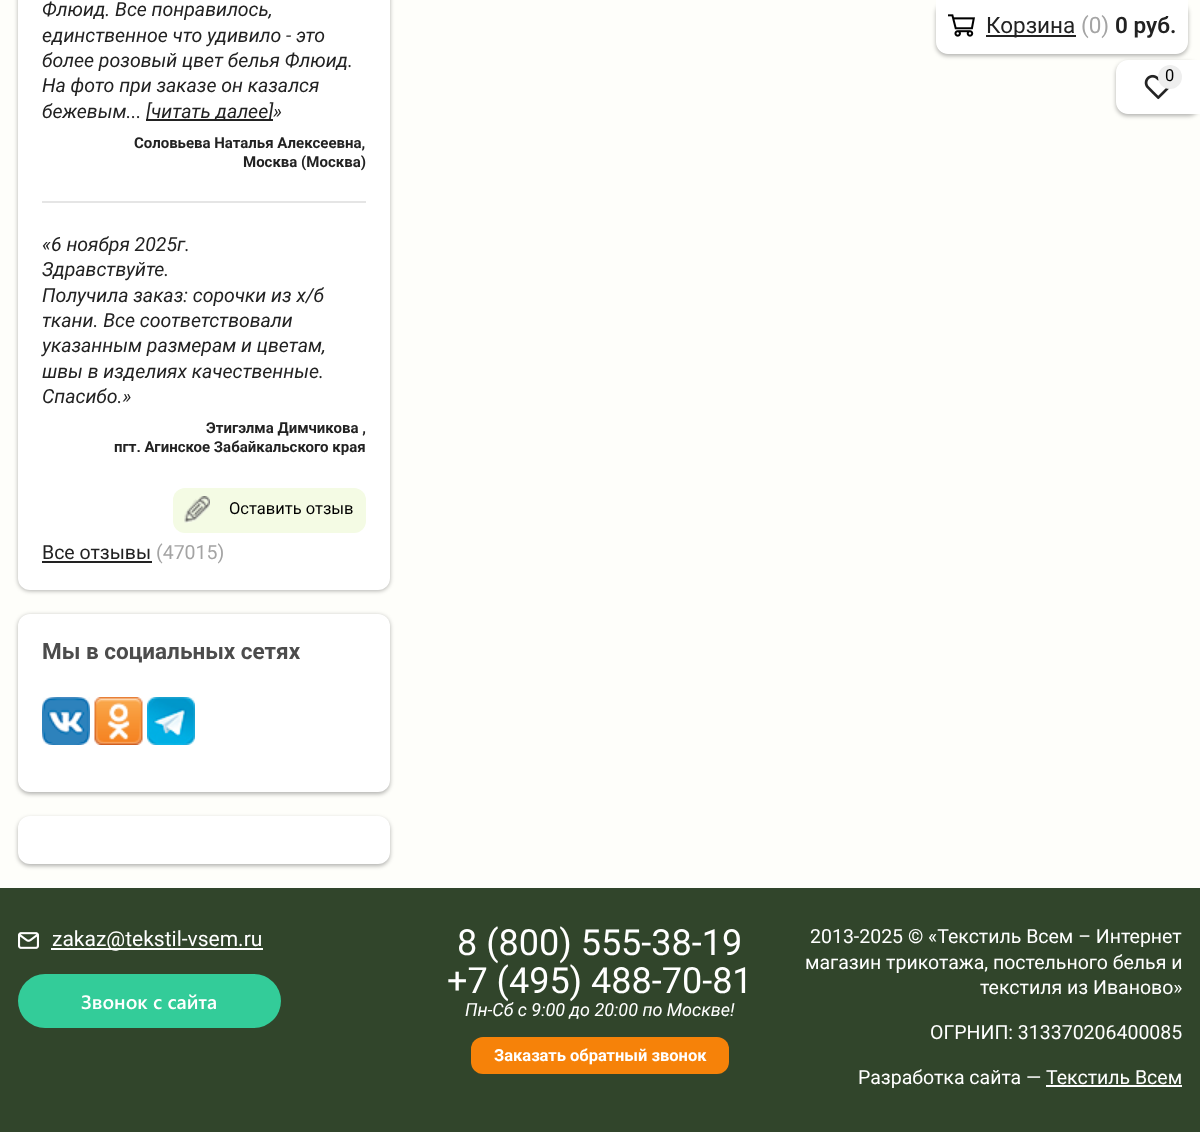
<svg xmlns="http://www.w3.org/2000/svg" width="1200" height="1132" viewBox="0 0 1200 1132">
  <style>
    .t1 { font: italic 19.5px Roboto; fill: #222; }
    .t2 { font: bold 15px Roboto; fill: #222; }
    .t3 { font: 16.5px Roboto; fill: #000; }
    .t4 { font: 19.5px Roboto; fill: #222; }
    .t5 { font: 19.5px Roboto; fill: #a4a4a4; }
    .t6 { font: bold 22.5px Roboto; fill: #4c4c4c; }
    .t7 { font: 22.5px Roboto; fill: #222; }
    .t8 { font: 22.5px Roboto; fill: #a4a4a4; }
    .t9 { font: 600 22.5px Roboto; fill: #222; }
    .t10 { font: 21px Roboto; fill: #fff; }
    .t11 { font: 600 19.5px Segoe UI; fill: #fff; }
    .t12 { font: 36px Roboto; fill: #fff; }
    .t13 { font: italic 18px Roboto; fill: #fff; }
    .t14 { font: bold 16.5px Roboto; fill: #fff; }
    .t15 { font: 19.5px Roboto; fill: #fff; }
  </style>
  <rect width="100%" height="100%" fill="#fefefa"/>
  <rect x="18" y="-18" width="372" height="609" rx="12" fill="#0000004d" filter="blur(2px)"/>
  <rect x="18" y="-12" width="372" height="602" rx="12" fill="#fff"/>
  <text x="42" y="16" class="t1">Флюид. Все понравилось,</text>
  <text x="42" y="42" class="t1">единственное что удивило - это</text>
  <text x="42" y="67" class="t1">более розовый цвет белья Флюид.</text>
  <text x="42" y="92" class="t1">На фото при заказе он казался</text>
  <text x="42" y="118" class="t1">бежевым...</text>
  <rect x="146" y="119" width="127" height="2" fill="#222"/>
  <text x="146" y="118" class="t1">[читать далее]</text>
  <text x="273" y="118" class="t1">»</text>
  <text x="134" y="148" class="t2">Соловьева Наталья Алексеевна,</text>
  <text x="243" y="167" class="t2">Москва (Москва)</text>
  <rect x="42" y="201" width="324" height="2" fill="#e5e5e5"/>
  <text x="42" y="251" class="t1">«6 ноября 2025г.</text>
  <text x="42" y="276" class="t1">Здравствуйте.</text>
  <text x="42" y="302" class="t1">Получила заказ: сорочки из х/б</text>
  <text x="42" y="327" class="t1">ткани. Все соответствовали</text>
  <text x="42" y="352" class="t1">указанным размерам и цветам,</text>
  <text x="42" y="378" class="t1">швы в изделиях качественные.</text>
  <text x="42" y="403" class="t1">Спасибо.»</text>
  <text x="206" y="433" class="t2">Этигэлма Димчикова ,</text>
  <text x="114" y="452" class="t2">пгт. Агинское Забайкальского края</text>
  <rect x="173" y="488" width="193" height="45" rx="12" fill="#f4fbe4"/>
  <image x="184" y="496" width="26" height="27" href="images/1.png"/>
  <text x="229" y="514" class="t3">Оставить отзыв</text>
  <text x="42" y="559" class="t4">Все отзывы</text>
  <rect x="42" y="561" width="110" height="2" fill="#222"/>
  <text x="156" y="559" class="t5">(47015)</text>
  <rect x="18" y="615" width="372" height="179" rx="12" fill="#0000004d" filter="blur(2px)"/>
  <rect x="18" y="614" width="372" height="178" rx="12" fill="#fff"/>
  <text x="42" y="659" class="t6">Мы в социальных сетях</text>
  <image x="42" y="697" width="48" height="48" href="images/2.png"/>
  <image x="94" y="697" width="49" height="48" href="images/3.png"/>
  <image x="147" y="697" width="48" height="48" href="images/4.png"/>
  <rect x="18" y="818" width="372" height="48" rx="12" fill="#0000004d" filter="blur(2px)"/>
  <rect x="18" y="816" width="372" height="48" rx="12" fill="#fff"/>
  <rect x="936" y="2" width="252" height="54" rx="12" fill="#0000004d" filter="blur(2px)"/>
  <path d="M936 0H1188V42C1188 48.5 1182.5 54 1176 54H948C941.5 54 936 48.5 936 42Z" fill="#fff"/>
  <image x="948" y="14" width="27" height="23" href="images/5.png"/>
  <rect x="986" y="35" width="90" height="2" fill="#222"/>
  <text x="986" y="33" class="t7">Корзина</text>
  <text x="1081" y="33" class="t8">(0)</text>
  <text x="1115" y="33" class="t9">0 руб.</text>
  <rect x="1116" y="62" width="84" height="54" rx="12" fill="#0000004d" filter="blur(2px)"/>
  <path d="M1128 60H1200V114H1128C1121.5 114 1116 108.5 1116 102V72C1116 65.5 1121.5 60 1128 60Z" fill="#fff"/>
  <image x="1144" y="74" width="26" height="26" href="images/6.png"/>
  <circle cx="1170" cy="77" r="12" fill="#eee"/>
  <text x="1165" y="81" class="t3">0</text>
  <rect x="0" y="888" width="1200" height="244" fill="#31452b"/>
  <image x="18" y="932" width="21" height="17" href="images/7.png"/>
  <rect x="51" y="948" width="212" height="2" fill="#fff"/>
  <text x="52" y="946" class="t10">zakaz@tekstil-vsem.ru</text>
  <rect x="18" y="974" width="263" height="54" rx="27" fill="#3c9"/>
  <text x="81" y="1009" class="t11">Звонок с сайта</text>
  <text x="457" y="955" class="t12">8 (800) 555-38-19</text>
  <text x="447" y="993" class="t12">+7 (495) 488-70-81</text>
  <text x="465" y="1016" class="t13">Пн-Сб с 9:00 до 20:00 по Москве!</text>
  <rect x="471" y="1037" width="258" height="37" rx="12" fill="#f68209"/>
  <text x="494" y="1061" class="t14">Заказать обратный звонок</text>
  <text x="810" y="943" class="t15">2013-2025 © «Текстиль Всем – Интернет</text>
  <text x="805" y="969" class="t15">магазин трикотажа, постельного белья и</text>
  <text x="980" y="994" class="t15">текстиля из Иваново»</text>
  <text x="930" y="1039" class="t15">ОГРНИП: 313370206400085</text>
  <text x="858" y="1084" class="t15">Разработка сайта —</text>
  <text x="1046" y="1084" class="t15">Текстиль Всем</text>
  <rect x="1046" y="1085" width="136" height="2" fill="#fff"/>
</svg>
